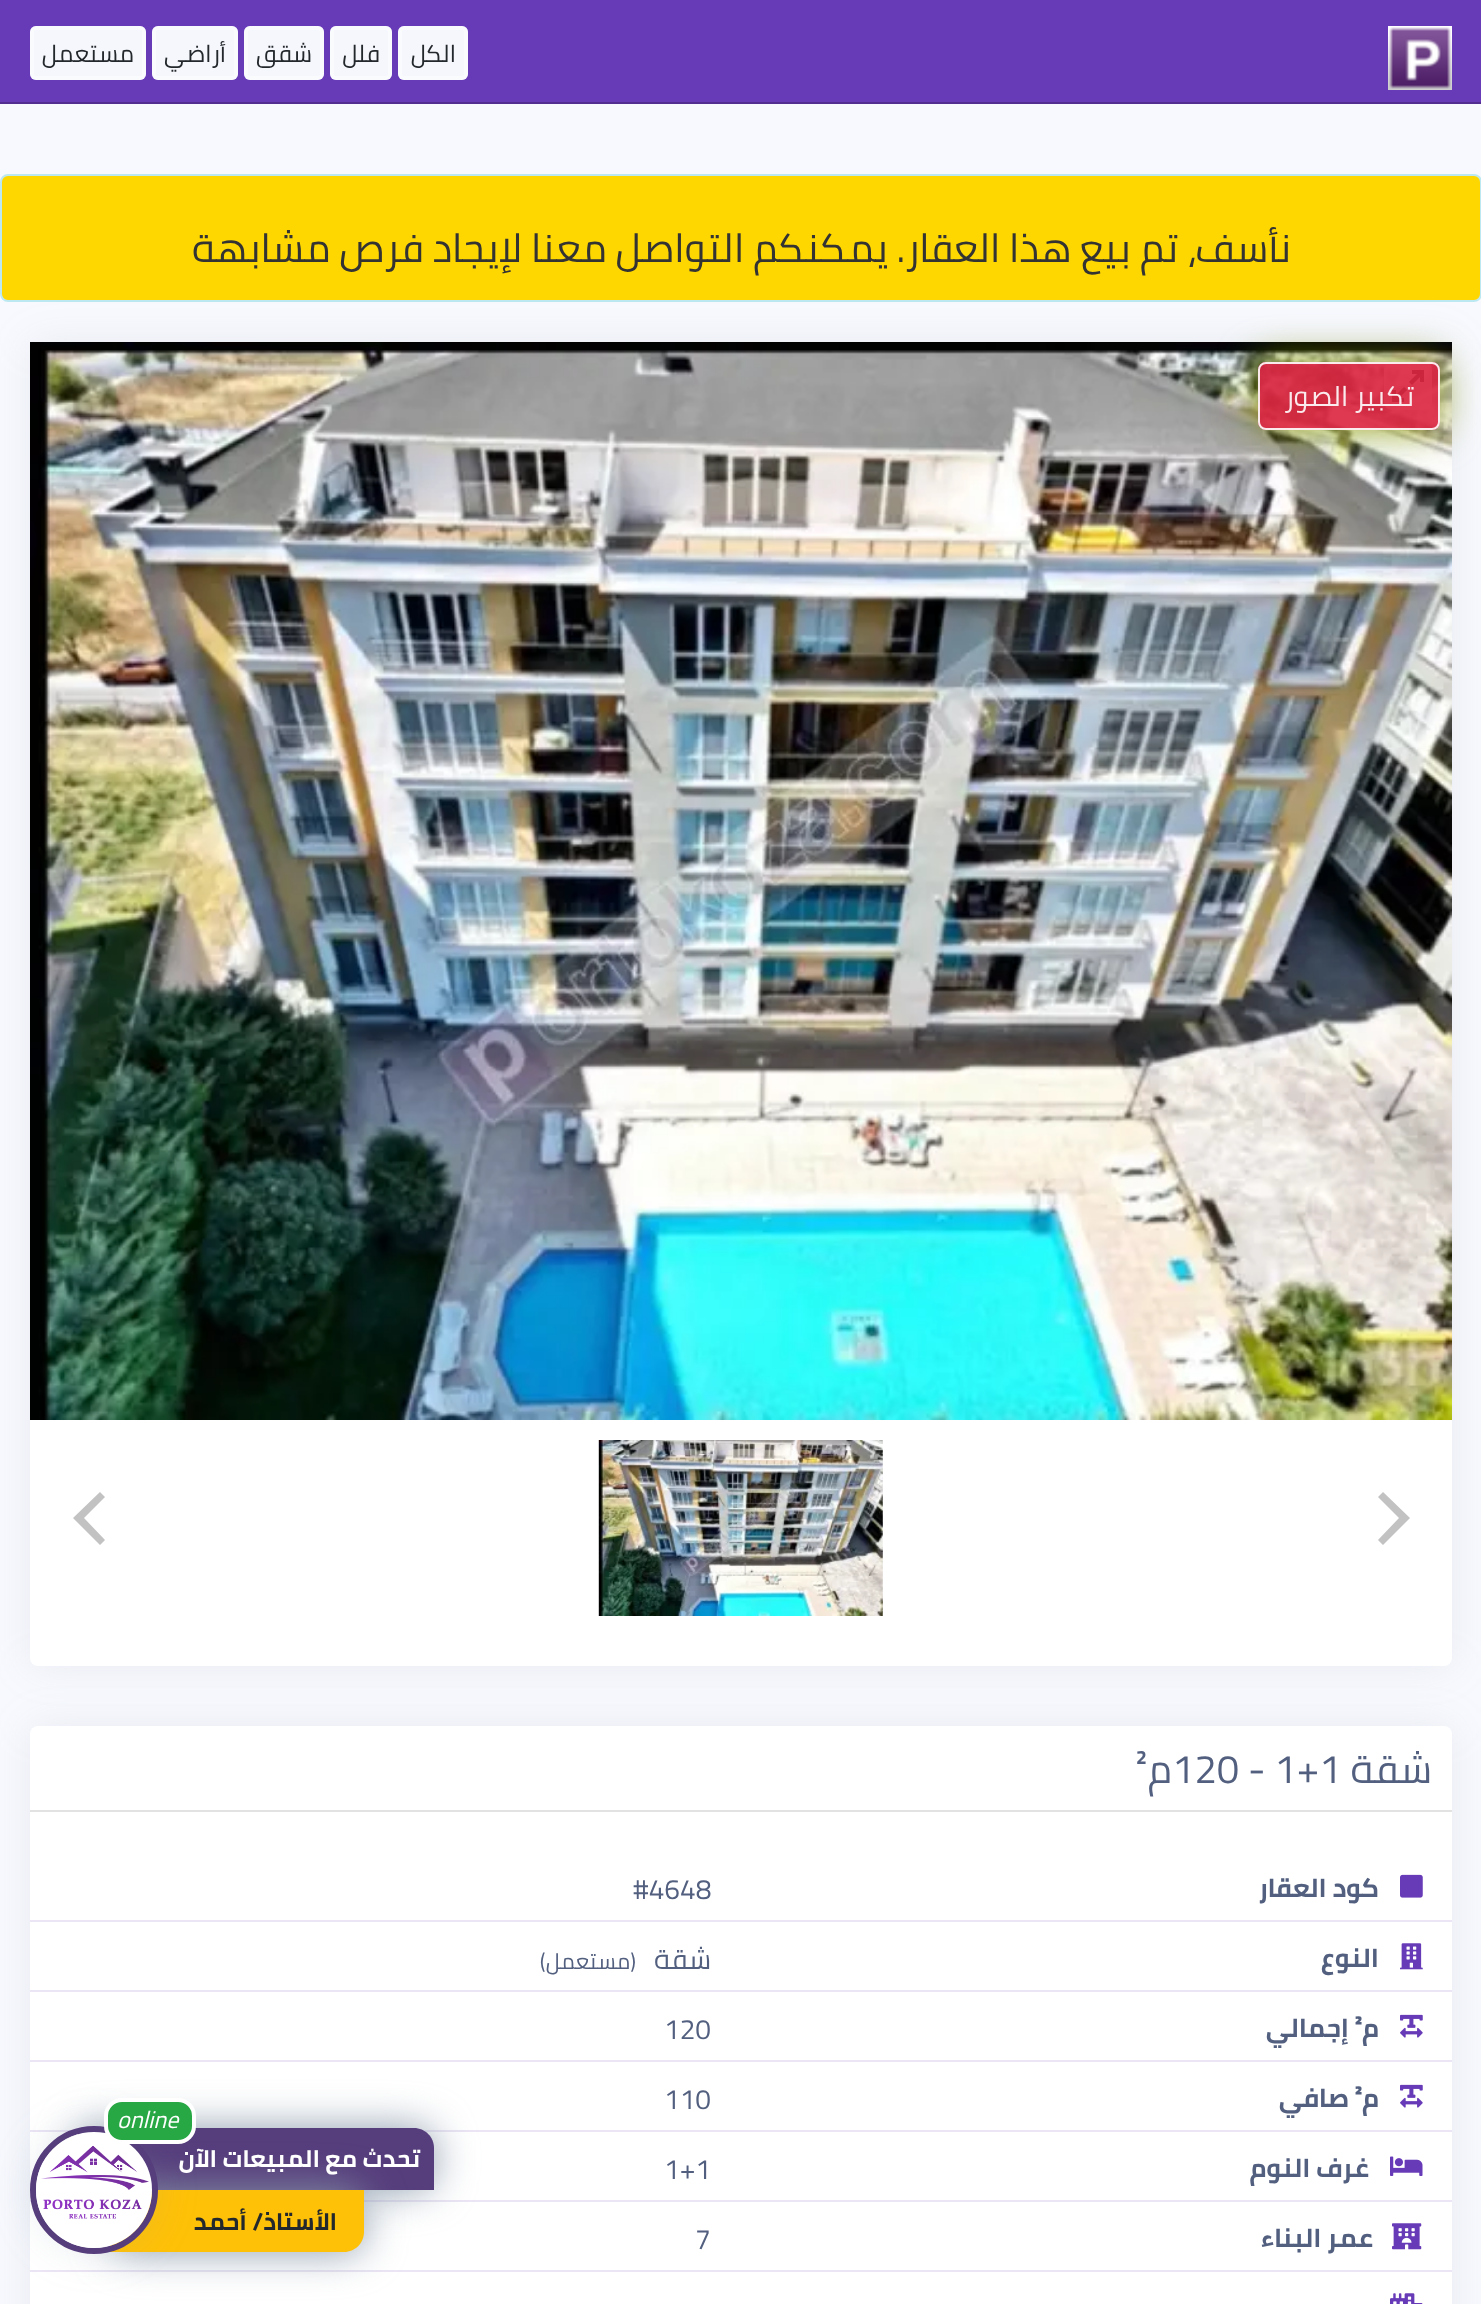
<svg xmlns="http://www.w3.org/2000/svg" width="1481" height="2304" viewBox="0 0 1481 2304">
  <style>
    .t1 { font: 24px Cairo; direction: rtl; fill: #23282d; }
    .t2 { font: 40px Cairo; direction: rtl; fill: #333; }
    .t3 { font: 28px Cairo; direction: rtl; fill: #fbeaed; }
    .t4 { font: 40px Cairo; direction: rtl; fill: #525f7f; }
    .t5 { font: 40px Cairo; fill: #525f7f; }
    .t6 { font: bold 26px Cairo; direction: rtl; fill: #525f7f; }
    .t7 { font: 28px Cairo; fill: #525f7f; }
    .t8 { font: 28px Cairo; direction: rtl; fill: #525f7f; }
    .t9 { font: 22px Cairo; direction: rtl; fill: #525f7f; }
    .t10 { font: bold 26px Cairo; fill: #525f7f; }
    .t11 { font: italic 24px Cairo; fill: #fff; }
    .t12 { font: bold 24px Cairo; direction: rtl; fill: #fff; }
    .t13 { font: bold 24px Cairo; direction: rtl; fill: #23282d; }
  </style>
  <defs>
    <clipPath id="clip1"><path d="M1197 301H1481V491H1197ZM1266 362H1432C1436.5 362 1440 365.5 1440 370V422C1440 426.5 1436.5 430 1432 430H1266C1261.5 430 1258 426.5 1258 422V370C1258 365.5 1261.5 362 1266 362Z" clip-rule="evenodd"/></clipPath>
    <clipPath id="clip2"><rect x="742" y="2008" width="710" height="40"/></clipPath>
    <clipPath id="clip3"><rect x="742" y="2078" width="710" height="40"/></clipPath>
  </defs>
  <rect width="100%" height="100%" fill="#f8f9fe"/>
  <rect x="0" y="0" width="1481" height="102" fill="#673ab7"/>
  <rect x="0" y="102" width="1481" height="2" fill="#512e90"/>
  <image x="1388" y="26" width="64" height="64" href="images/1.png"/>
  <rect x="398" y="26" width="70" height="54" rx="6" fill="#f6f7fc"/>
  <rect x="400" y="28" width="66" height="50" rx="4" fill="none" stroke="#ffffff78" stroke-width="4"/>
  <text x="456" y="62" class="t1">الكل</text>
  <rect x="330" y="26" width="62" height="54" rx="6" fill="#f6f7fc"/>
  <rect x="332" y="28" width="58" height="50" rx="4" fill="none" stroke="#ffffff78" stroke-width="4"/>
  <text x="380" y="62" class="t1">فلل</text>
  <rect x="244" y="26" width="80" height="54" rx="6" fill="#f6f7fc"/>
  <rect x="246" y="28" width="76" height="50" rx="4" fill="none" stroke="#ffffff78" stroke-width="4"/>
  <text x="312" y="62" class="t1">شقق</text>
  <rect x="152" y="26" width="86" height="54" rx="6" fill="#f6f7fc"/>
  <rect x="154" y="28" width="82" height="50" rx="4" fill="none" stroke="#ffffff78" stroke-width="4"/>
  <text x="226" y="62" class="t1">أراضي</text>
  <rect x="30" y="26" width="116" height="54" rx="6" fill="#f6f7fc"/>
  <rect x="32" y="28" width="112" height="50" rx="4" fill="none" stroke="#ffffff78" stroke-width="4"/>
  <text x="134" y="62" class="t1">مستعمل</text>
  <rect x="1" y="175" width="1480" height="126" rx="7" fill="#ffd700" stroke="#bce8f1" stroke-width="2"/>
  <text x="1291" y="262" class="t2">نأسف، تم بيع هذا العقار. يمكنكم التواصل معنا لإيجاد فرص مشابهة</text>
  <rect x="30" y="342" width="1422" height="1324" rx="8" fill="#8898aa26" filter="blur(20px)"/>
  <rect x="30" y="342" width="1422" height="1324" rx="8" fill="#fff"/>
  <image x="30" y="342" width="1422" height="1078" href="images/2.png"/>
  <rect x="1384" y="362" width="48" height="48" rx="8" fill="#ffffffbf"/>
  <image x="1392" y="370" width="32" height="32" href="images/3.png"/>
  <g clip-path="url(#clip1)">
    <rect x="1258" y="362" width="182" height="68" rx="8" fill="#889805e6" filter="blur(20px)"/>
  </g>
  <rect x="1258" y="362" width="182" height="68" rx="8" fill="#dc243fe6"/>
  <rect x="1259" y="363" width="180" height="66" rx="7" fill="none" stroke="#ffffffe6" stroke-width="2"/>
  <text x="1414" y="406" class="t3">تكبير الصور</text>
  <path d="M1410 1518L1383 1492L1378 1497L1399 1518L1378 1540L1383 1545Z" fill="#c2c2c2"/>
  <image x="598" y="1440" width="285" height="176" href="images/4.png"/>
  <path d="M73 1518L100 1545L105 1540L84 1518L105 1497L100 1492Z" fill="#c2c2c2"/>
  <rect x="30" y="1726" width="1422" height="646" rx="8" fill="#8898aa26" filter="blur(20px)"/>
  <rect x="30" y="1726" width="1422" height="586" rx="8" fill="#fff"/>
  <rect x="30" y="1810" width="1422" height="2" fill="#e2e2e2"/>
  <text x="1432" y="1783" class="t4">شقة</text>
  <text x="1172" y="1783" class="t5">120 - 1+1</text>
  <text x="1172" y="1783" class="t4">م</text>
  <text x="1136" y="1783" class="t5">²</text>
  <rect x="30" y="1920" width="1422" height="2" fill="#ebe5f5"/>
  <image x="1400" y="1874" width="23" height="24" href="images/5.png"/>
  <text x="1379" y="1897" class="t6">كود العقار</text>
  <text x="633" y="1899" class="t7">#4648</text>
  <rect x="30" y="1990" width="1422" height="2" fill="#ebe5f5"/>
  <image x="1400" y="1943" width="23" height="27" href="images/6.png"/>
  <text x="1379" y="1967" class="t6">النوع</text>
  <text x="711" y="1969" class="t8">شقة</text>
  <text x="636" y="1969" class="t9">(مستعمل)</text>
  <rect x="30" y="2060" width="1422" height="2" fill="#ebe5f5"/>
  <image x="1400" y="2014" width="23" height="24" href="images/7.png"/>
  <text x="1379" y="2037" class="t6">م</text>
  <text x="1355" y="2037" class="t10">²</text>
  <g clip-path="url(#clip2)">
    <text x="1349" y="2037" class="t6">إجمالي</text>
  </g>
  <text x="664" y="2039" class="t7">120</text>
  <rect x="30" y="2130" width="1422" height="2" fill="#ebe5f5"/>
  <image x="1400" y="2084" width="23" height="24" href="images/7.png"/>
  <text x="1379" y="2107" class="t6">م</text>
  <text x="1355" y="2107" class="t10">²</text>
  <g clip-path="url(#clip3)">
    <text x="1349" y="2107" class="t6">صافي</text>
  </g>
  <text x="664" y="2109" class="t7">110</text>
  <rect x="30" y="2200" width="1422" height="2" fill="#ebe5f5"/>
  <image x="1390" y="2156" width="33" height="20" href="images/8.png"/>
  <text x="1369" y="2177" class="t6">غرف النوم</text>
  <text x="664" y="2179" class="t7">1+1</text>
  <rect x="30" y="2270" width="1422" height="2" fill="#ebe5f5"/>
  <image x="1392" y="2223" width="30" height="27" href="images/9.png"/>
  <text x="1373" y="2247" class="t6">عمر البناء</text>
  <text x="695" y="2249" class="t7">7</text>
  <image x="1390" y="2293" width="33" height="11" href="images/10.png"/>
  <rect x="78" y="2128" width="356" height="62" rx="20" fill="#8898aaf5" filter="blur(20px)"/>
  <path d="M78 2128H414C425 2128 434 2137 434 2148V2190H78Z" fill="#563d7c"/>
  <rect x="110" y="2190" width="254" height="62" rx="20" fill="#8898aaf5" filter="blur(20px)"/>
  <path d="M110 2190H364V2232C364 2243 355 2252 344 2252H110Z" fill="#ffc107"/>
  <rect x="30" y="2126" width="128" height="128" rx="64" fill="#8898aa26" filter="blur(20px)"/>
  <circle cx="94" cy="2190" r="61" fill="none" stroke="#563d7c" stroke-width="6"/>
  <image x="36" y="2132" width="116" height="116" href="images/11.png"/>
  <rect x="106" y="2100" width="88" height="42" rx="16" fill="#28a745" stroke="#fff" stroke-width="4"/>
  <text x="117" y="2128" class="t11">online</text>
  <text x="420" y="2167" class="t12">تحدث مع المبيعات الآن</text>
  <text x="337" y="2230" class="t13">الأستاذ/ أحمد</text>
</svg>
